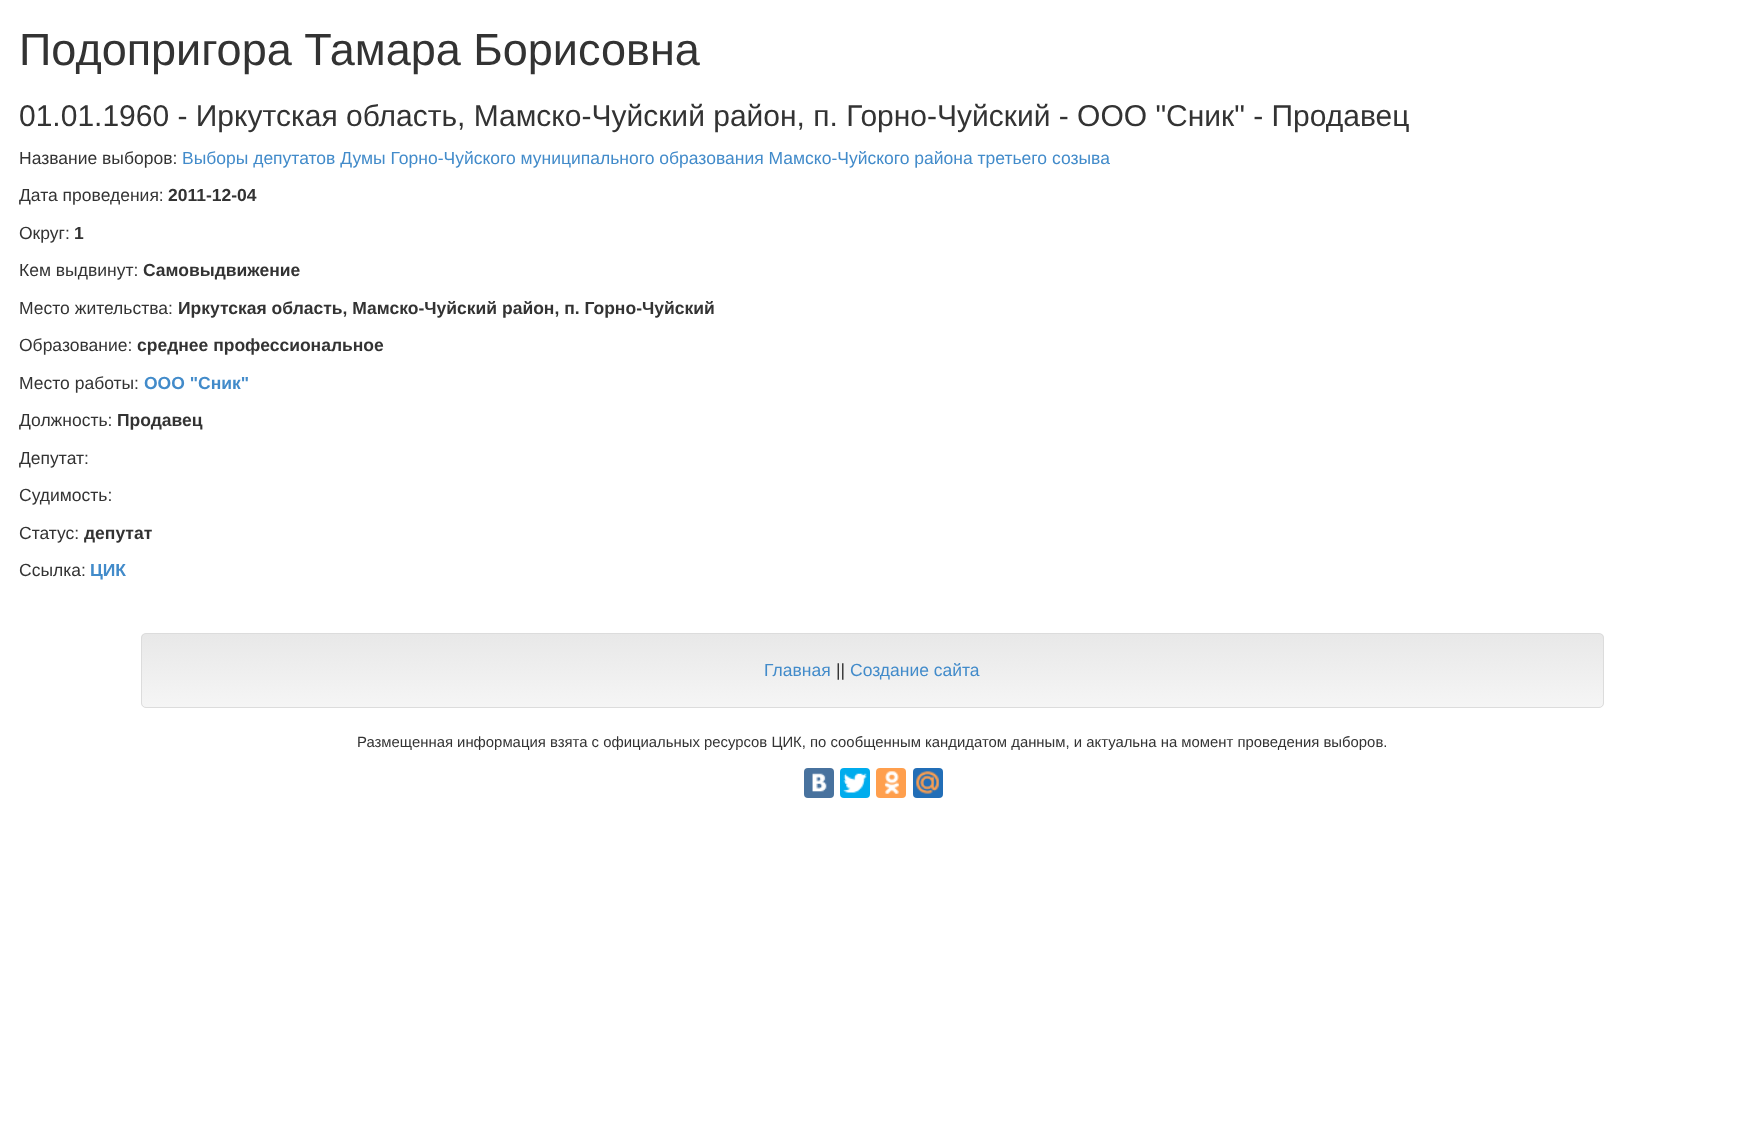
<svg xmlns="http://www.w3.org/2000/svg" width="1743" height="1141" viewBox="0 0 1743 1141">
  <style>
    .t1 { font: 45px Liberation Sans; fill: #333; }
    .t2 { font: 30px Liberation Sans; fill: #333; }
    .t3 { font: 17.5px Liberation Sans; fill: #333; }
    .t4 { font: 17.5px Liberation Sans; fill: #428bca; }
    .t5 { font: bold 17.5px Liberation Sans; fill: #333; }
    .t6 { font: bold 17.5px Liberation Sans; fill: #428bca; }
    .t7 { font: 14.88px Liberation Sans; fill: #333; }
  </style>
  <defs>
    <clipPath id="clip1"><rect x="141" y="633" width="1463" height="75" rx="5"/></clipPath>
    <linearGradient id="g1" gradientUnits="userSpaceOnUse" x1="873" y1="634" x2="873" y2="706"><stop offset="0" stop-color="#e8e8e8"/><stop offset="1" stop-color="#f5f5f5"/></linearGradient>
  </defs>
  <rect width="100%" height="100%" fill="#fff"/>
  <text x="19" y="65" class="t1">Подопригора Тамара Борисовна</text>
  <text x="19" y="126" class="t2">01.01.1960 - Иркутская область, Мамско-Чуйский район, п. Горно-Чуйский - ООО "Сник" - Продавец</text>
  <text x="19" y="164" class="t3">Название выборов:</text>
  <text x="182" y="164" class="t4">Выборы депутатов Думы Горно-Чуйского муниципального образования Мамско-Чуйского района третьего созыва</text>
  <text x="19" y="201" class="t3">Дата проведения:</text>
  <text x="168" y="201" class="t5">2011-12-04</text>
  <text x="19" y="239" class="t3">Округ:</text>
  <text x="74" y="239" class="t5">1</text>
  <text x="19" y="276" class="t3">Кем выдвинут:</text>
  <text x="143" y="276" class="t5">Самовыдвижение</text>
  <text x="19" y="314" class="t3">Место жительства:</text>
  <text x="178" y="314" class="t5">Иркутская область, Мамско-Чуйский район, п. Горно-Чуйский</text>
  <text x="19" y="351" class="t3">Образование:</text>
  <text x="137" y="351" class="t5">среднее профессиональное</text>
  <text x="19" y="389" class="t3">Место работы:</text>
  <text x="144" y="389" class="t6">ООО "Сник"</text>
  <text x="19" y="426" class="t3">Должность:</text>
  <text x="117" y="426" class="t5">Продавец</text>
  <text x="19" y="464" class="t3">Депутат:</text>
  <text x="19" y="501" class="t3">Судимость:</text>
  <text x="19" y="539" class="t3">Статус:</text>
  <text x="84" y="539" class="t5">депутат</text>
  <text x="19" y="576" class="t3">Ссылка:</text>
  <text x="90" y="576" class="t6">ЦИК</text>
  <rect x="141" y="633" width="1463" height="75" rx="5" fill="#f5f5f5"/>
  <g clip-path="url(#clip1)">
    <rect x="141" y="634" width="1463" height="72" fill="url(#g1)"/>
  </g>
  <rect x="141.5" y="633.5" width="1462" height="74" rx="4.5" fill="none" stroke="#dcdcdc"/>
  <text x="764" y="676" class="t4">Главная</text>
  <text x="836" y="676" class="t3">||</text>
  <text x="850" y="676" class="t4">Создание сайта</text>
  <text x="357" y="747" class="t7">Размещенная информация взята с официальных ресурсов ЦИК, по сообщенным кандидатом данным, и актуальна на момент проведения выборов.</text>
  <rect x="804" y="768" width="30" height="30" rx="4" fill="#48729e"/>
  <image x="812" y="773" width="15" height="19" href="images/1.png"/>
  <rect x="840" y="768" width="30" height="30" rx="4" fill="#00aced"/>
  <image x="843" y="773" width="24" height="20" href="images/2.png"/>
  <rect x="876" y="768" width="30" height="30" rx="4" fill="#ff9f4d"/>
  <image x="884" y="771" width="15" height="23" href="images/3.png"/>
  <rect x="913" y="768" width="30" height="30" rx="4" fill="#226eb7"/>
  <image x="916" y="771" width="23" height="23" href="images/4.png"/>
</svg>
